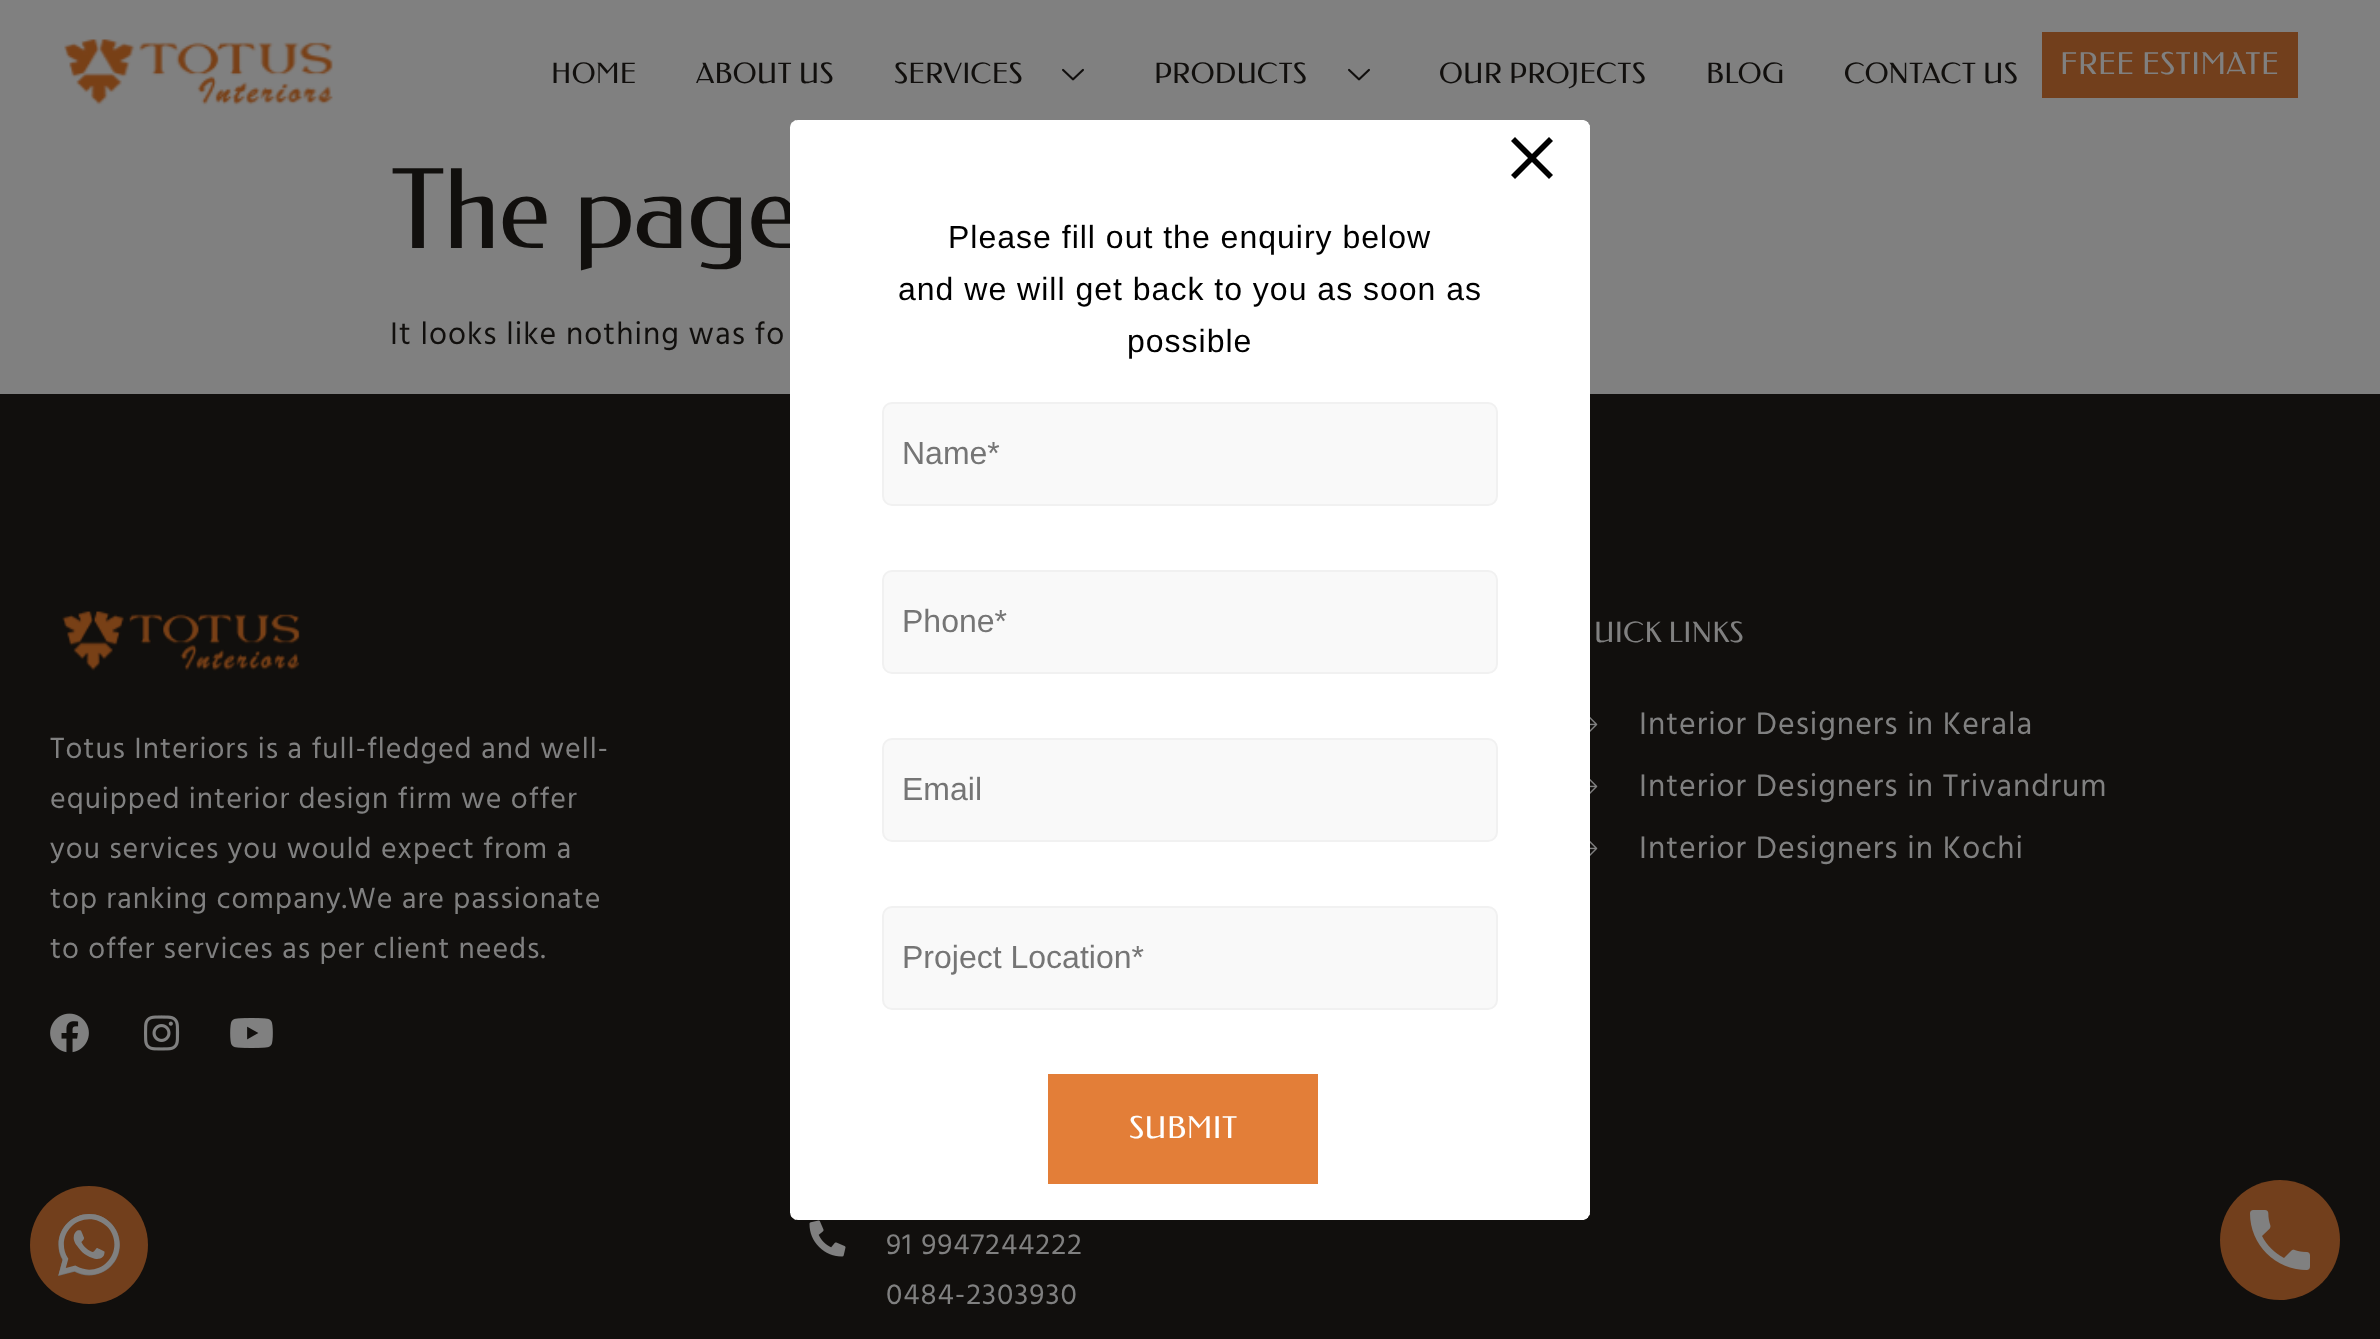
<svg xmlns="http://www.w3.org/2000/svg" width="2380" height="1339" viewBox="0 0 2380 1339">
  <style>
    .t1 { font: 28px Federo; letter-spacing: 0.25px; fill: #110f0d; }
    .t2 { font: 30px Federo; letter-spacing: 0.5px; fill: #808080; }
    .t3 { font: 110px Federo; letter-spacing: -1px; fill: #110f0d; }
    .t4 { font: 32px Hind Madurai; letter-spacing: 1px; fill: #110f0d; }
    .t5 { font: 30px Hind Madurai; letter-spacing: 1px; fill: #808080; }
    .t6 { font: 28px Federo; letter-spacing: 0.25px; fill: #808080; }
    .t7 { font: 32px Hind Madurai; letter-spacing: 1px; fill: #808080; }
    .t8 { font: 32px Liberation Sans; letter-spacing: 1px; fill: #000; }
    .t9 { font: 32px Liberation Sans; fill: #757575; }
    .t10 { font: 30px Federo; letter-spacing: 0.5px; fill: #fff; }
  </style>
  <rect width="100%" height="100%" fill="#808080"/>
  <image x="64" y="39" width="269" height="67" href="images/1.png"/>
  <text x="551" y="83" class="t1">HOME</text>
  <text x="696" y="83" class="t1">ABOUT US</text>
  <text x="894" y="83" class="t1">SERVICES</text>
  <image x="1062" y="68" width="22" height="13" href="images/2.png"/>
  <text x="1154" y="83" class="t1">PRODUCTS</text>
  <image x="1348" y="68" width="22" height="13" href="images/2.png"/>
  <text x="1439" y="83" class="t1">OUR PROJECTS</text>
  <text x="1706" y="83" class="t1">BLOG</text>
  <text x="1844" y="83" class="t1">CONTACT US</text>
  <rect x="2042" y="32" width="256" height="66" fill="#723f1c"/>
  <text x="2060" y="74" class="t2">FREE ESTIMATE</text>
  <text x="390" y="248" class="t3">The page</text>
  <text x="390" y="344" class="t4">It looks like nothing was fo</text>
  <rect x="0" y="394" width="2380" height="945" fill="#110f0d"/>
  <image x="62" y="611" width="238" height="60" href="images/3.png"/>
  <text x="50" y="758" class="t5">Totus Interiors is a full-fledged and well-</text>
  <text x="50" y="808" class="t5">equipped interior design firm we offer</text>
  <text x="50" y="858" class="t5">you services you would expect from a</text>
  <text x="50" y="908" class="t5">top ranking company.We are passionate</text>
  <text x="50" y="958" class="t5">to offer services as per client needs.</text>
  <image x="50" y="1013" width="39" height="40" href="images/4.png"/>
  <image x="144" y="1015" width="36" height="36" href="images/5.png"/>
  <image x="230" y="1018" width="43" height="30" href="images/6.png"/>
  <text x="1594" y="642" class="t6">UICK LINKS</text>
  <image x="1590" y="717" width="8" height="15" href="images/7.png"/>
  <text x="1639" y="734" class="t7">Interior Designers in Kerala</text>
  <image x="1590" y="779" width="8" height="15" href="images/7.png"/>
  <text x="1639" y="796" class="t7">Interior Designers in Trivandrum</text>
  <image x="1590" y="841" width="8" height="15" href="images/7.png"/>
  <text x="1639" y="858" class="t7">Interior Designers in Kochi</text>
  <image x="809" y="1220" width="37" height="37" href="images/8.png"/>
  <text x="886" y="1254" class="t5">91 9947244222</text>
  <text x="886" y="1304" class="t5">0484-2303930</text>
  <rect x="790" y="120" width="800" height="1100" rx="8" fill="#fff"/>
  <path d="M798 121H1582C1586 121 1589 124 1589 128V1212C1589 1216 1586 1219 1582 1219H798C794 1219 791 1216 791 1212V128C791 124 794 121 798 121Z" fill="none" stroke="#fff" stroke-width="2" stroke-dasharray="2 2"/>
  <path d="M1553 141L1549 137L1532 154L1515 137L1511 141L1528 158L1511 175L1515 179L1532 162L1549 179L1553 175L1536 158Z" fill="#000"/>
  <text x="948" y="248" class="t8">Please fill out the enquiry below</text>
  <text x="898" y="300" class="t8">and we will get back to you as soon as</text>
  <text x="1127" y="352" class="t8">possible</text>
  <rect x="883" y="403" width="614" height="102" rx="9" fill="#f9f9f9" stroke="#f1f1f1" stroke-width="2"/>
  <text x="902" y="464" class="t9">Name*</text>
  <rect x="883" y="571" width="614" height="102" rx="9" fill="#f9f9f9" stroke="#f1f1f1" stroke-width="2"/>
  <text x="902" y="632" class="t9">Phone*</text>
  <rect x="883" y="739" width="614" height="102" rx="9" fill="#f9f9f9" stroke="#f1f1f1" stroke-width="2"/>
  <text x="902" y="800" class="t9">Email</text>
  <rect x="883" y="907" width="614" height="102" rx="9" fill="#f9f9f9" stroke="#f1f1f1" stroke-width="2"/>
  <text x="902" y="968" class="t9">Project Location*</text>
  <rect x="1048" y="1074" width="270" height="110" fill="#e37e38"/>
  <text x="1129" y="1138" class="t10">SUBMIT</text>
  <circle cx="89" cy="1245" r="59" fill="#723f1c"/>
  <image x="58" y="1214" width="62" height="62" href="images/9.png"/>
  <circle cx="2280" cy="1240" r="60" fill="#723f1c"/>
  <image x="2250" y="1210" width="60" height="60" href="images/10.png"/>
</svg>
